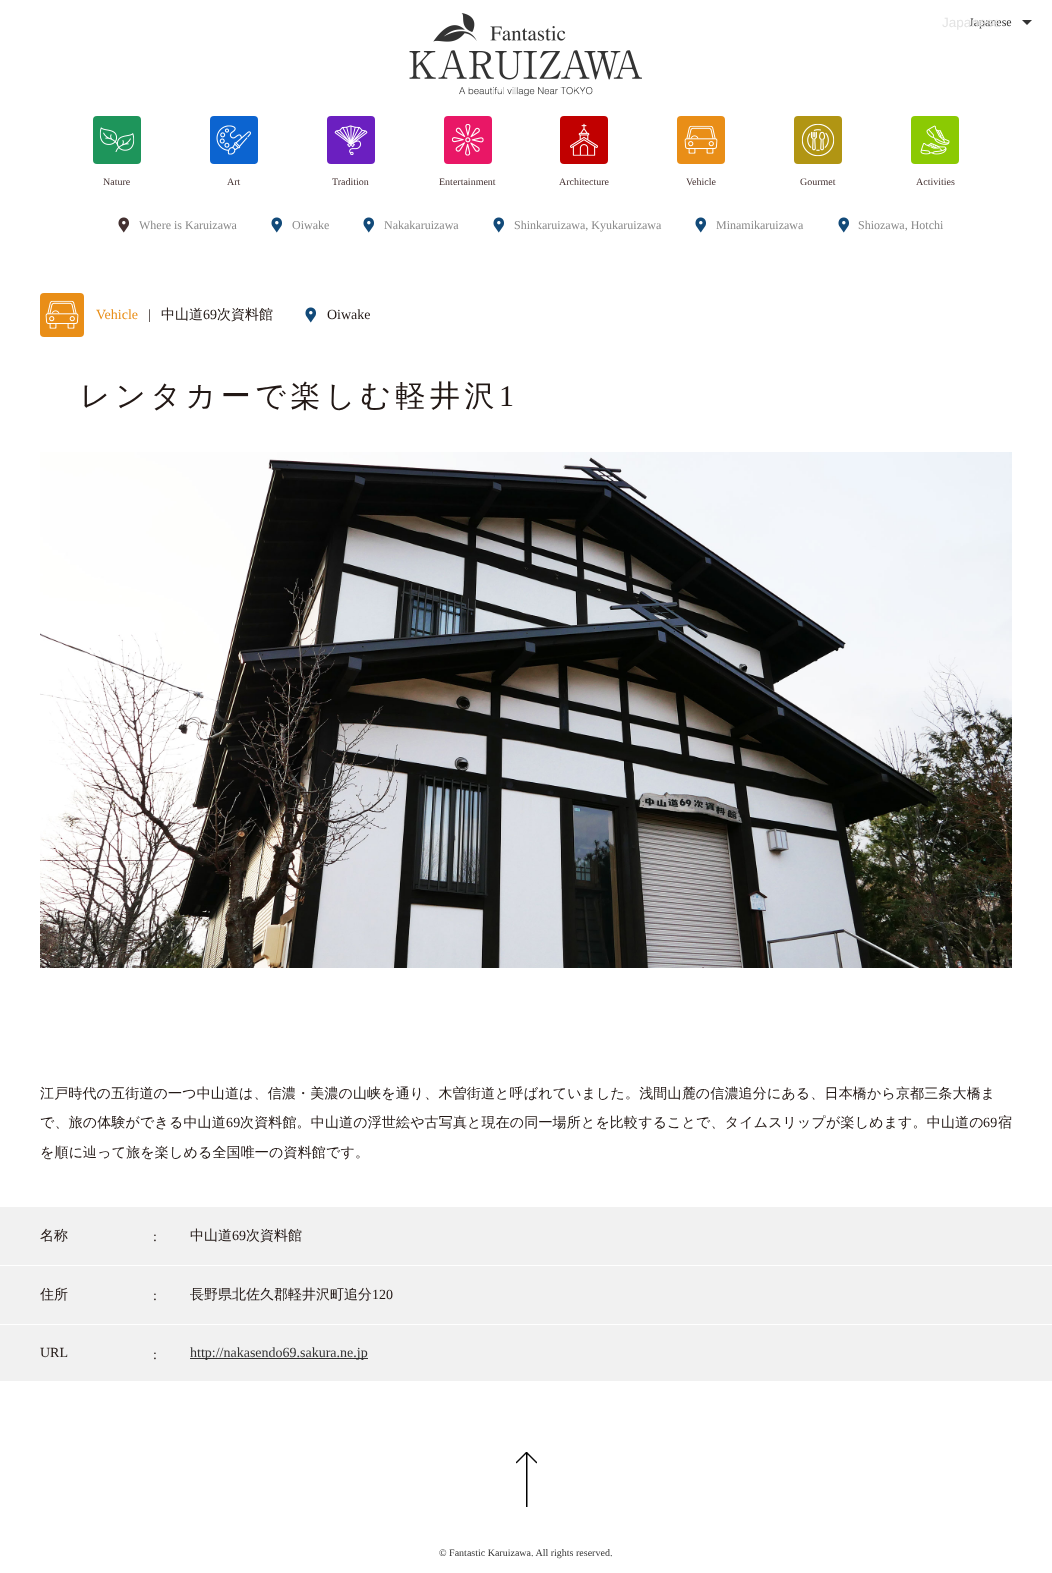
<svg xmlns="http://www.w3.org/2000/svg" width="1052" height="1573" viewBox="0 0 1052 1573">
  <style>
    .t1 { font: 12px Liberation Serif; fill: #333; }
    .t2 { font: 13.5px Liberation Sans; fill: #e3e3e3; }
    .t3 { font: 12px Liberation Serif; fill: #898989; }
    .t4 { font: 10px Liberation Serif; fill: #433030; }
    .t5 { font: 14px Liberation Serif; fill: #e98e17; }
    .t6 { font: 14px Liberation Serif; fill: #221815; }
    .t7 { font: 500 14px WenQuanYi Zen Hei; fill: #221815; }
    .t8 { font: 500 30px WenQuanYi Zen Hei; letter-spacing: 4.5px; fill: #221815; }
    .t9 { font: 30px Liberation Serif; letter-spacing: 4.5px; fill: #221815; }
    .t10 { font: 500 14px WenQuanYi Zen Hei; letter-spacing: 0.15px; fill: #221815; }
    .t11 { font: 14px Liberation Serif; letter-spacing: 0.15px; fill: #221815; }
    .t12 { font: 14px Liberation Serif; fill: #333; }
    .t13 { font: 10px Liberation Serif; fill: #333; }
  </style>
  <rect width="100%" height="100%" fill="#fff"/>
  <image x="409" y="13" width="233" height="83" href="images/1.png"/>
  <text x="969" y="26" class="t1">Japanese</text>
  <text x="942" y="27" class="t2">Japanese</text>
  <path d="M1022 20H1032L1027 25Z" fill="#333"/>
  <image x="118" y="217" width="11" height="16" href="images/2.png"/>
  <text x="139" y="229" class="t3">Where is Karuizawa</text>
  <image x="271" y="217" width="11" height="16" href="images/3.png"/>
  <text x="292" y="229" class="t3">Oiwake</text>
  <image x="363" y="217" width="11" height="16" href="images/3.png"/>
  <text x="384" y="229" class="t3">Nakakaruizawa</text>
  <image x="493" y="217" width="11" height="16" href="images/3.png"/>
  <text x="514" y="229" class="t3">Shinkaruizawa, Kyukaruizawa</text>
  <image x="695" y="217" width="11" height="16" href="images/3.png"/>
  <text x="716" y="229" class="t3">Minamikaruizawa</text>
  <image x="838" y="217" width="11" height="16" href="images/3.png"/>
  <text x="858" y="229" class="t3">Shiozawa, Hotchi</text>
  <rect x="93" y="116" width="48" height="48" rx="4" fill="#1e955b"/>
  <image x="99" y="127" width="36" height="25" href="images/4.png"/>
  <text x="103" y="185" class="t4">Nature</text>
  <rect x="210" y="116" width="48" height="48" rx="4" fill="#0c64d0"/>
  <image x="216" y="125" width="35" height="30" href="images/5.png"/>
  <text x="227" y="185" class="t4">Art</text>
  <rect x="327" y="116" width="48" height="48" rx="4" fill="#6b1fc0"/>
  <image x="334" y="125" width="34" height="31" href="images/6.png"/>
  <text x="332" y="185" class="t4">Tradition</text>
  <rect x="444" y="116" width="48" height="48" rx="4" fill="#e91766"/>
  <image x="451" y="124" width="33" height="32" href="images/7.png"/>
  <text x="439" y="185" class="t4">Entertainment</text>
  <rect x="560" y="116" width="48" height="48" rx="4" fill="#c10000"/>
  <image x="570" y="123" width="28" height="33" href="images/8.png"/>
  <text x="559" y="185" class="t4">Architecture</text>
  <rect x="677" y="116" width="48" height="48" rx="4" fill="#e98e17"/>
  <image x="684" y="125" width="34" height="29" href="images/9.png"/>
  <text x="686" y="185" class="t4">Vehicle</text>
  <rect x="794" y="116" width="48" height="48" rx="4" fill="#b19513"/>
  <image x="801" y="123" width="34" height="34" href="images/10.png"/>
  <text x="800" y="185" class="t4">Gourmet</text>
  <rect x="911" y="116" width="48" height="48" rx="4" fill="#8bca03"/>
  <image x="920" y="125" width="30" height="30" href="images/11.png"/>
  <text x="916" y="185" class="t4">Activities</text>
  <rect x="40" y="293" width="44" height="44" rx="4" fill="#e98e17"/>
  <image x="45" y="300" width="34" height="29" href="images/9.png"/>
  <text x="96" y="319" class="t5">Vehicle</text>
  <text x="148" y="319" class="t6">|</text>
  <text x="161" y="319" class="t7">中山道</text>
  <text x="203" y="319" class="t6">69</text>
  <text x="217" y="319" class="t7">次資料館</text>
  <image x="305" y="307" width="11" height="16" href="images/3.png"/>
  <text x="327" y="319" class="t6">Oiwake</text>
  <text x="80" y="406" class="t8">レンタカーで楽しむ軽井沢</text>
  <text x="499" y="406" class="t9">1</text>
  <image x="40" y="452" width="972" height="516" href="images/12.png"/>
  <text x="40" y="1098" class="t10">江戸時代の五街道の一つ中山道は、信濃・美濃の山峡を通り、木曽街道と呼ばれていました。浅間山麓の信濃追分にある、日本橋から京都三条大橋ま</text>
  <text x="40" y="1127" class="t10">で、旅の体験ができる中山道</text>
  <text x="226" y="1127" class="t11">69</text>
  <text x="240" y="1127" class="t10">次資料館。中山道の浮世絵や古写真と現在の同一場所とを比較することで、タイムスリップが楽しめます。中山道の</text>
  <text x="983" y="1127" class="t11">69</text>
  <text x="998" y="1127" class="t10">宿</text>
  <text x="40" y="1157" class="t10">を順に辿って旅を楽しめる全国唯一の資料館です。</text>
  <rect x="0" y="1207" width="1052" height="58" fill="#f1f1f1"/>
  <text x="40" y="1240" class="t7">名称</text>
  <text x="153" y="1241" class="t6">:</text>
  <text x="190" y="1240" class="t7">中山道</text>
  <text x="232" y="1240" class="t6">69</text>
  <text x="246" y="1240" class="t7">次資料館</text>
  <rect x="0" y="1266" width="1052" height="58" fill="#f1f1f1"/>
  <text x="40" y="1299" class="t7">住所</text>
  <text x="153" y="1300" class="t6">:</text>
  <text x="190" y="1299" class="t7">長野県北佐久郡軽井沢町追分</text>
  <text x="372" y="1299" class="t6">120</text>
  <rect x="0" y="1325" width="1052" height="56" fill="#f1f1f1"/>
  <text x="40" y="1357" class="t6">URL</text>
  <text x="153" y="1359" class="t6">:</text>
  <rect x="190" y="1358" width="178" height="1" fill="#333"/>
  <text x="190" y="1357" class="t12">http://nakasendo69.sakura.ne.jp</text>
  <image x="516" y="1452" width="21" height="55" href="images/13.png"/>
  <text x="439" y="1556" class="t13">© Fantastic Karuizawa. All rights reserved.</text>
</svg>
